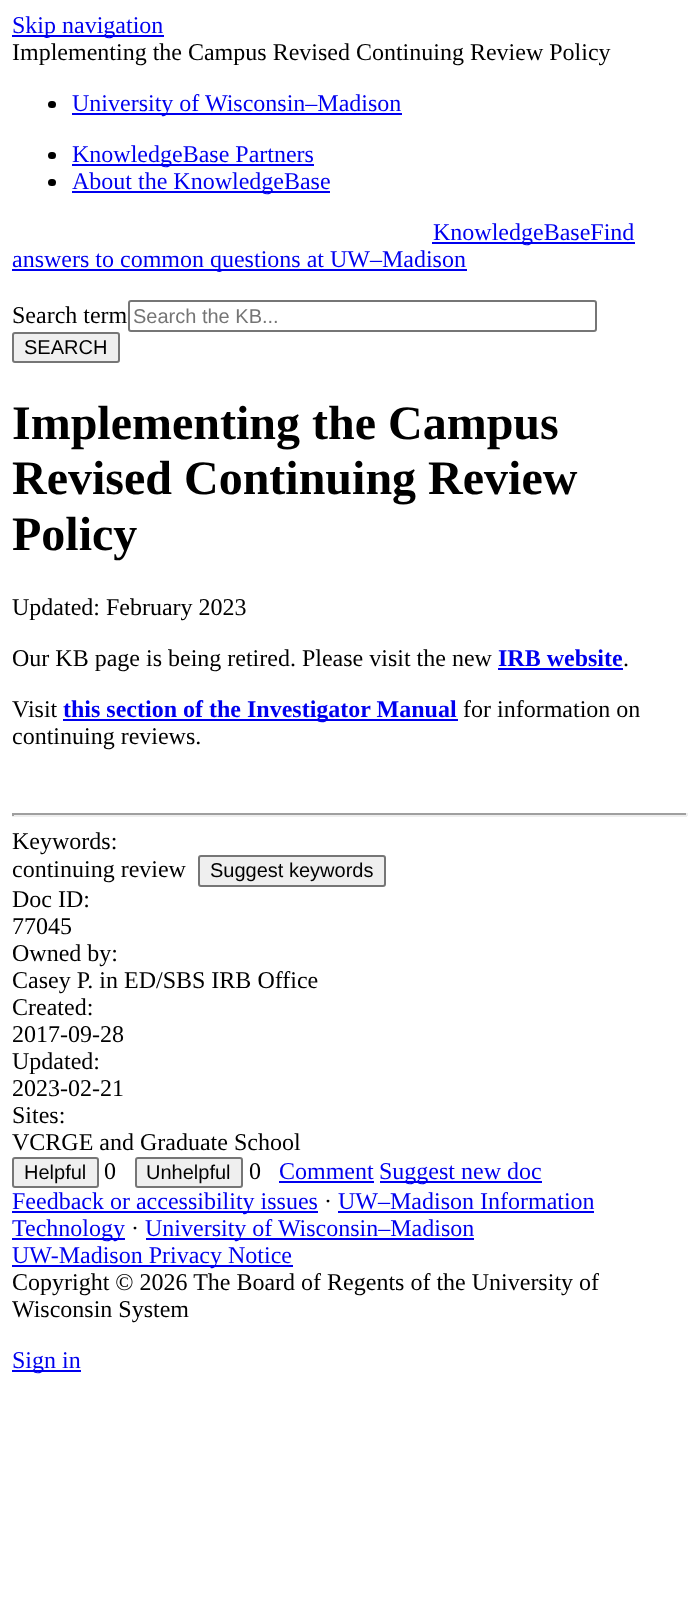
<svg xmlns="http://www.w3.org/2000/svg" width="699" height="1600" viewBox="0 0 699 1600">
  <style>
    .t1 { font: 24px Liberation Serif; fill: #00e; }
    .t2 { font: 24px Liberation Serif; fill: #000; }
    .t3 { font: 20px Liberation Sans; fill: #757575; }
    .t4 { font: 20px Liberation Sans; fill: #000; }
    .t5 { font: bold 48px Liberation Serif; fill: #000; }
    .t6 { font: bold 24px Liberation Serif; fill: #00e; }
  </style>
  <rect width="100%" height="100%" fill="#fff"/>
  <rect x="12" y="35" width="152" height="2" fill="#00e"/>
  <text x="12" y="33" class="t1">Skip navigation</text>
  <text x="12" y="60" class="t2">Implementing the Campus Revised Continuing Review Policy</text>
  <rect x="48" y="101" width="8" height="7" rx="3.5" fill="#000"/>
  <rect x="72" y="113" width="330" height="2" fill="#00e"/>
  <text x="72" y="111" class="t1">University of</text>
  <text x="205" y="111" class="t1">Wisconsin–Madison</text>
  <rect x="48" y="152" width="8" height="7" rx="3.5" fill="#000"/>
  <rect x="72" y="164" width="242" height="2" fill="#00e"/>
  <text x="72" y="162" class="t1">KnowledgeBase Partners</text>
  <rect x="48" y="179" width="8" height="7" rx="3.5" fill="#000"/>
  <rect x="72" y="191" width="258" height="2" fill="#00e"/>
  <text x="72" y="189" class="t1">About the KnowledgeBase</text>
  <rect x="432" y="242" width="203" height="2" fill="#00e"/>
  <text x="433" y="240" class="t1">KnowledgeBaseFind</text>
  <rect x="12" y="269" width="455" height="2" fill="#00e"/>
  <text x="12" y="267" class="t1">answers to common questions at UW–Madison</text>
  <text x="12" y="323" class="t2">Search term</text>
  <rect x="129" y="301" width="467" height="30" rx="2" fill="none" stroke="#767676" stroke-width="2"/>
  <text x="133" y="323" class="t3">Search the KB...</text>
  <rect x="13" y="333" width="106" height="29" rx="2" fill="#efefef" stroke="#767676" stroke-width="2"/>
  <text x="24" y="354" class="t4">SEARCH</text>
  <text x="12" y="439" class="t5">Implementing the Campus</text>
  <text x="12" y="494" class="t5">Revised Continuing Review</text>
  <text x="12" y="550" class="t5">Policy</text>
  <text x="12" y="615" class="t2">Updated: February 2023</text>
  <text x="12" y="666" class="t2">Our KB page is being retired. Please visit the new</text>
  <text x="498" y="666" class="t6">IRB website</text>
  <rect x="498" y="668" width="125" height="2" fill="#00e"/>
  <text x="623" y="666" class="t2">.</text>
  <text x="12" y="717" class="t2">Visit</text>
  <rect x="63" y="719" width="395" height="2" fill="#00e"/>
  <text x="63" y="717" class="t6">this section of the Investigator Manual</text>
  <text x="463" y="717" class="t2">for information on</text>
  <text x="12" y="744" class="t2">continuing reviews.</text>
  <rect x="12" y="813" width="675" height="2" fill="#9f9f9f"/>
  <rect x="686" y="813" width="2" height="3" fill="#eee"/>
  <rect x="12" y="815" width="675" height="2" fill="#eee"/>
  <rect x="12" y="813" width="2" height="3" fill="#9f9f9f"/>
  <text x="12" y="849" class="t2">Keywords:</text>
  <text x="12" y="877" class="t2">continuing review</text>
  <rect x="199" y="856" width="186" height="30" rx="2" fill="#efefef" stroke="#767676" stroke-width="2"/>
  <text x="210" y="877" class="t4">Suggest keywords</text>
  <text x="12" y="907" class="t2">Doc ID:</text>
  <text x="12" y="934" class="t2">77045</text>
  <text x="12" y="961" class="t2">Owned by:</text>
  <text x="12" y="988" class="t2">Casey P. in ED/SBS IRB Office</text>
  <text x="12" y="1015" class="t2">Created:</text>
  <text x="12" y="1042" class="t2">2017-09-28</text>
  <text x="12" y="1069" class="t2">Updated:</text>
  <text x="12" y="1096" class="t2">2023-02-21</text>
  <text x="12" y="1123" class="t2">Sites:</text>
  <text x="12" y="1150" class="t2">VCRGE and Graduate School</text>
  <rect x="13" y="1158" width="85" height="29" rx="2" fill="#efefef" stroke="#767676" stroke-width="2"/>
  <text x="24" y="1179" class="t4">Helpful</text>
  <text x="104" y="1179" class="t2">0</text>
  <rect x="136" y="1158" width="106" height="29" rx="2" fill="#efefef" stroke="#767676" stroke-width="2"/>
  <text x="146" y="1179" class="t4">Unhelpful</text>
  <text x="249" y="1179" class="t2">0</text>
  <text x="279" y="1179" class="t1">Comment</text>
  <rect x="279" y="1181" width="95" height="2" fill="#00e"/>
  <rect x="380" y="1181" width="162" height="2" fill="#00e"/>
  <text x="379" y="1179" class="t1">Suggest new doc</text>
  <rect x="12" y="1211" width="306" height="2" fill="#00e"/>
  <text x="12" y="1209" class="t1">Feedback or accessibility issues</text>
  <text x="324" y="1209" class="t2">·</text>
  <text x="338" y="1209" class="t1">UW–Madison Information</text>
  <rect x="338" y="1211" width="256" height="2" fill="#00e"/>
  <rect x="12" y="1238" width="113" height="2" fill="#00e"/>
  <text x="12" y="1236" class="t1">Technology</text>
  <text x="131" y="1236" class="t2">·</text>
  <rect x="146" y="1238" width="328" height="2" fill="#00e"/>
  <text x="145" y="1236" class="t1">University of Wisconsin–Madison</text>
  <rect x="12" y="1265" width="281" height="2" fill="#00e"/>
  <text x="12" y="1263" class="t1">UW-Madison Privacy Notice</text>
  <text x="12" y="1290" class="t2">Copyright © 2026 The Board of Regents of the University of</text>
  <text x="12" y="1317" class="t2">Wisconsin System</text>
  <rect x="12" y="1370" width="69" height="2" fill="#00e"/>
  <text x="12" y="1368" class="t1">Sign in</text>
</svg>
